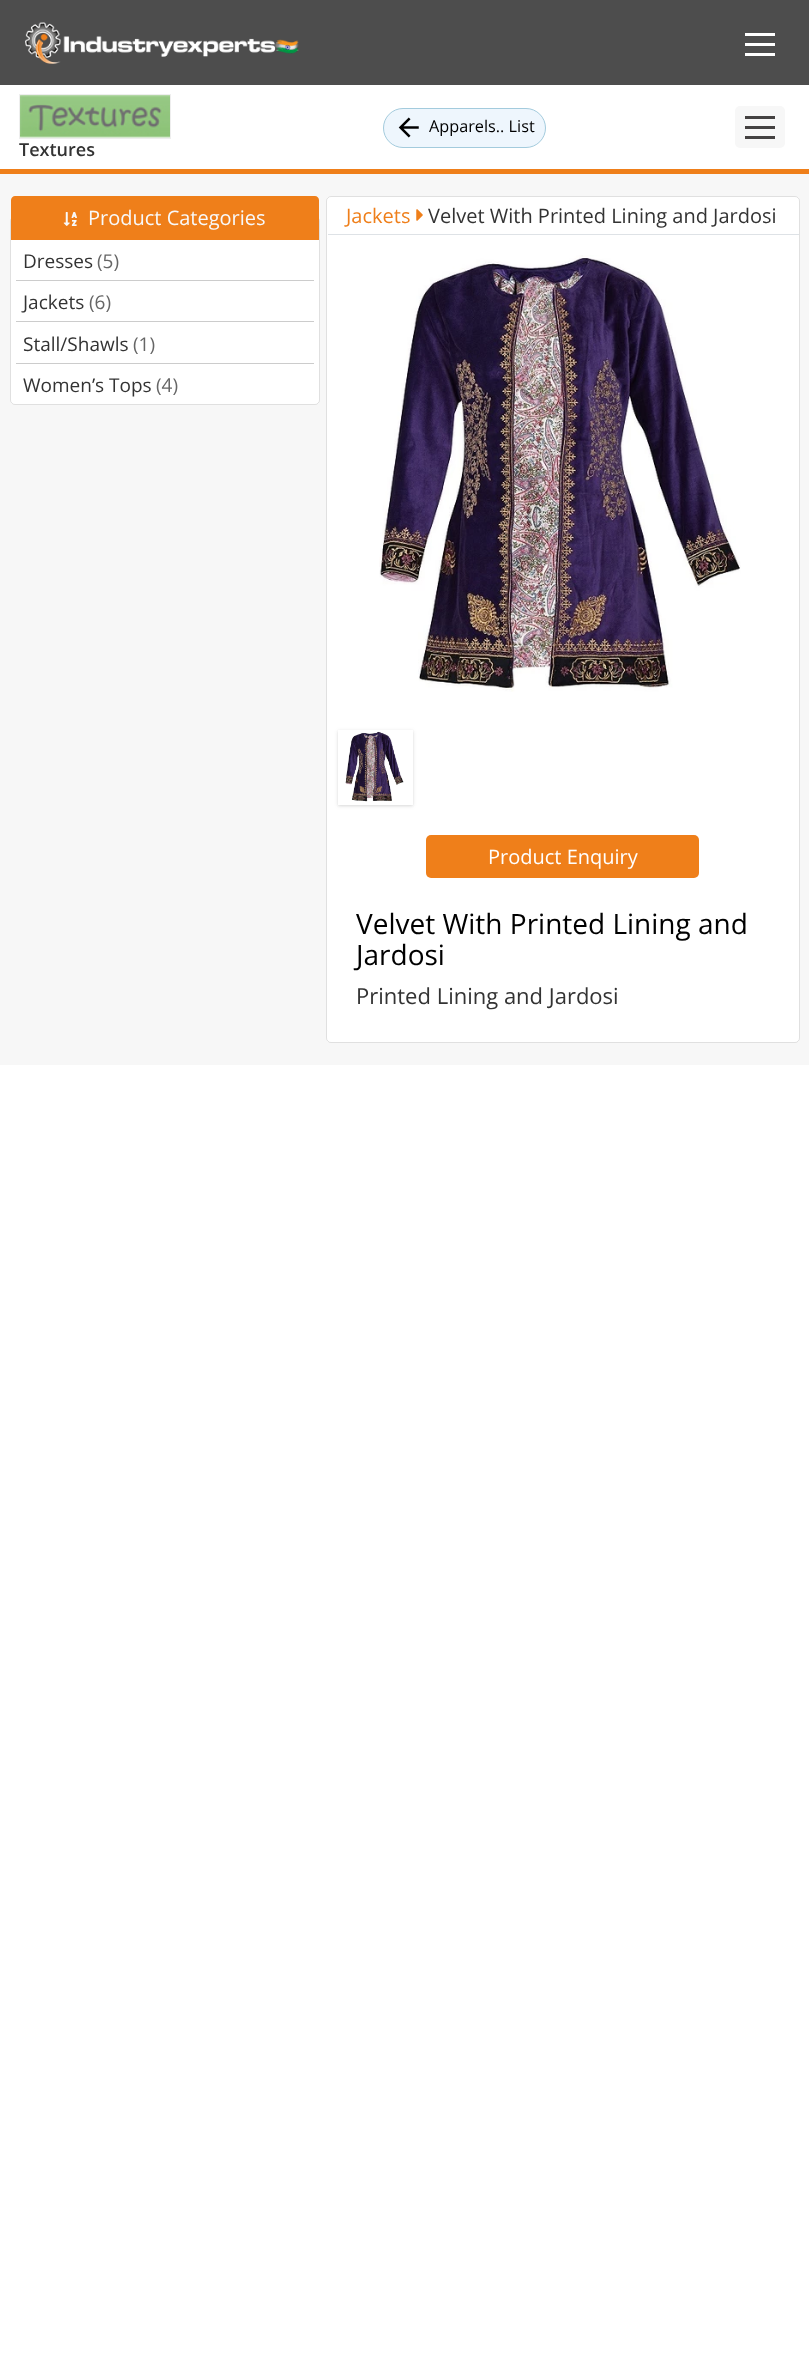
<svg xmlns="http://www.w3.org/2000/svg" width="809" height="2359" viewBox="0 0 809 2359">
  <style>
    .t1 { font: 16.25px Open Sans; fill: #000; }
    .t2 { font: 600 18px Open Sans; fill: #333; }
    .t3 { font: 20px Open Sans; fill: #f8f9fa; }
    .t4 { font: 19px Open Sans; fill: #333; }
    .t5 { font: 19px Open Sans; fill: #666; }
    .t6 { font: 20px Open Sans; fill: #ef7f1a; }
    .t7 { font: 20px Open Sans; fill: #333; }
    .t8 { font: 20px Open Sans; fill: #fff; }
    .t9 { font: 28px Open Sans; fill: #000; }
    .t10 { font: 22px Open Sans; fill: #333; }
  </style>
  <defs>
    <clipPath id="clip1"><path d="M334 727H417V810H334ZM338 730H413V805H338Z" clip-rule="evenodd"/></clipPath>
    <clipPath id="clip2"><path d="M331 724H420V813H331ZM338 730H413V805H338Z" clip-rule="evenodd"/></clipPath>
  </defs>
  <rect width="100%" height="100%" fill="#fff"/>
  <rect x="0" y="0" width="809" height="85" fill="#4d4d4d"/>
  <image x="25" y="22" width="274" height="42" href="images/1.png"/>
  <rect x="745" y="33" width="30" height="3" fill="#fff"/>
  <rect x="745" y="43" width="30" height="3" fill="#fff"/>
  <rect x="745" y="53" width="30" height="3" fill="#fff"/>
  <rect x="0" y="169" width="809" height="5" fill="#ef7f1a"/>
  <rect x="383.5" y="108.5" width="162" height="39" rx="19.5" fill="#eef6fd" stroke="#a3cbdd"/>
  <image x="398" y="117" width="21" height="21" href="images/2.png"/>
  <text x="429" y="132" class="t1">Apparels.. List</text>
  <rect x="735" y="106" width="50" height="42" rx="5" fill="#f7f7f7"/>
  <rect x="745" y="116" width="30" height="3" fill="#444242"/>
  <rect x="745" y="126" width="30" height="3" fill="#444242"/>
  <rect x="745" y="136" width="30" height="3" fill="#444242"/>
  <rect x="19.5" y="94.5" width="151" height="44" fill="none" stroke="#eee"/>
  <image x="20" y="95" width="150" height="43" href="images/3.png"/>
  <text x="19" y="156" class="t2">Textures</text>
  <rect x="0" y="174" width="809" height="891" fill="#f7f7f7"/>
  <rect x="10" y="216" width="310" height="189" rx="5" fill="#fff"/>
  <rect x="10.5" y="216.5" width="309" height="188" rx="4.5" fill="none" stroke="#0000001f"/>
  <path d="M15 196H315C317 196 319 198 319 200V240H11V200C11 198 13 196 15 196Z" fill="#ef7f1a"/>
  <image x="63" y="212" width="14" height="14" href="images/4.png"/>
  <text x="88" y="225" class="t3">Product Categories</text>
  <rect x="16" y="280" width="298" height="1" fill="#ccc"/>
  <text x="23" y="268" class="t4">Dresses</text>
  <text x="97" y="268" class="t5">(5)</text>
  <rect x="16" y="321" width="298" height="1" fill="#ccc"/>
  <text x="23" y="309" class="t4">Jackets</text>
  <text x="89" y="309" class="t5">(6)</text>
  <rect x="16" y="363" width="298" height="1" fill="#ccc"/>
  <text x="23" y="351" class="t4">Stall/Shawls</text>
  <text x="133" y="351" class="t5">(1)</text>
  <text x="23" y="392" class="t4">Women’s Tops</text>
  <text x="156" y="392" class="t5">(4)</text>
  <rect x="326" y="196" width="474" height="847" rx="5" fill="#fff"/>
  <rect x="326.5" y="196.5" width="473" height="846" rx="4.5" fill="none" stroke="#0000001f"/>
  <rect x="328" y="234" width="471" height="1" fill="#dee2e6"/>
  <text x="346" y="223" class="t6">Jackets</text>
  <image x="416" y="209" width="7" height="12" href="images/5.png"/>
  <text x="428" y="223" class="t7">Velvet With Printed Lining and Jardosi</text>
  <image x="379" y="255" width="362" height="437" href="images/6.png"/>
  <g clip-path="url(#clip1)">
    <rect x="338" y="731" width="75" height="75" fill="#0000000f" filter="blur(1px)"/>
  </g>
  <g clip-path="url(#clip2)">
    <rect x="338" y="731" width="75" height="75" fill="#0000001a" filter="blur(2px)"/>
  </g>
  <image x="345" y="731" width="59" height="71" href="images/7.png"/>
  <rect x="426" y="835" width="273" height="43" rx="5" fill="#ef7f1a"/>
  <text x="488" y="864" class="t8">Product Enquiry</text>
  <text x="356" y="934" class="t9">Velvet With Printed Lining and</text>
  <text x="356" y="965" class="t9">Jardosi</text>
  <text x="356" y="1004" class="t10">Printed Lining and Jardosi</text>
</svg>
